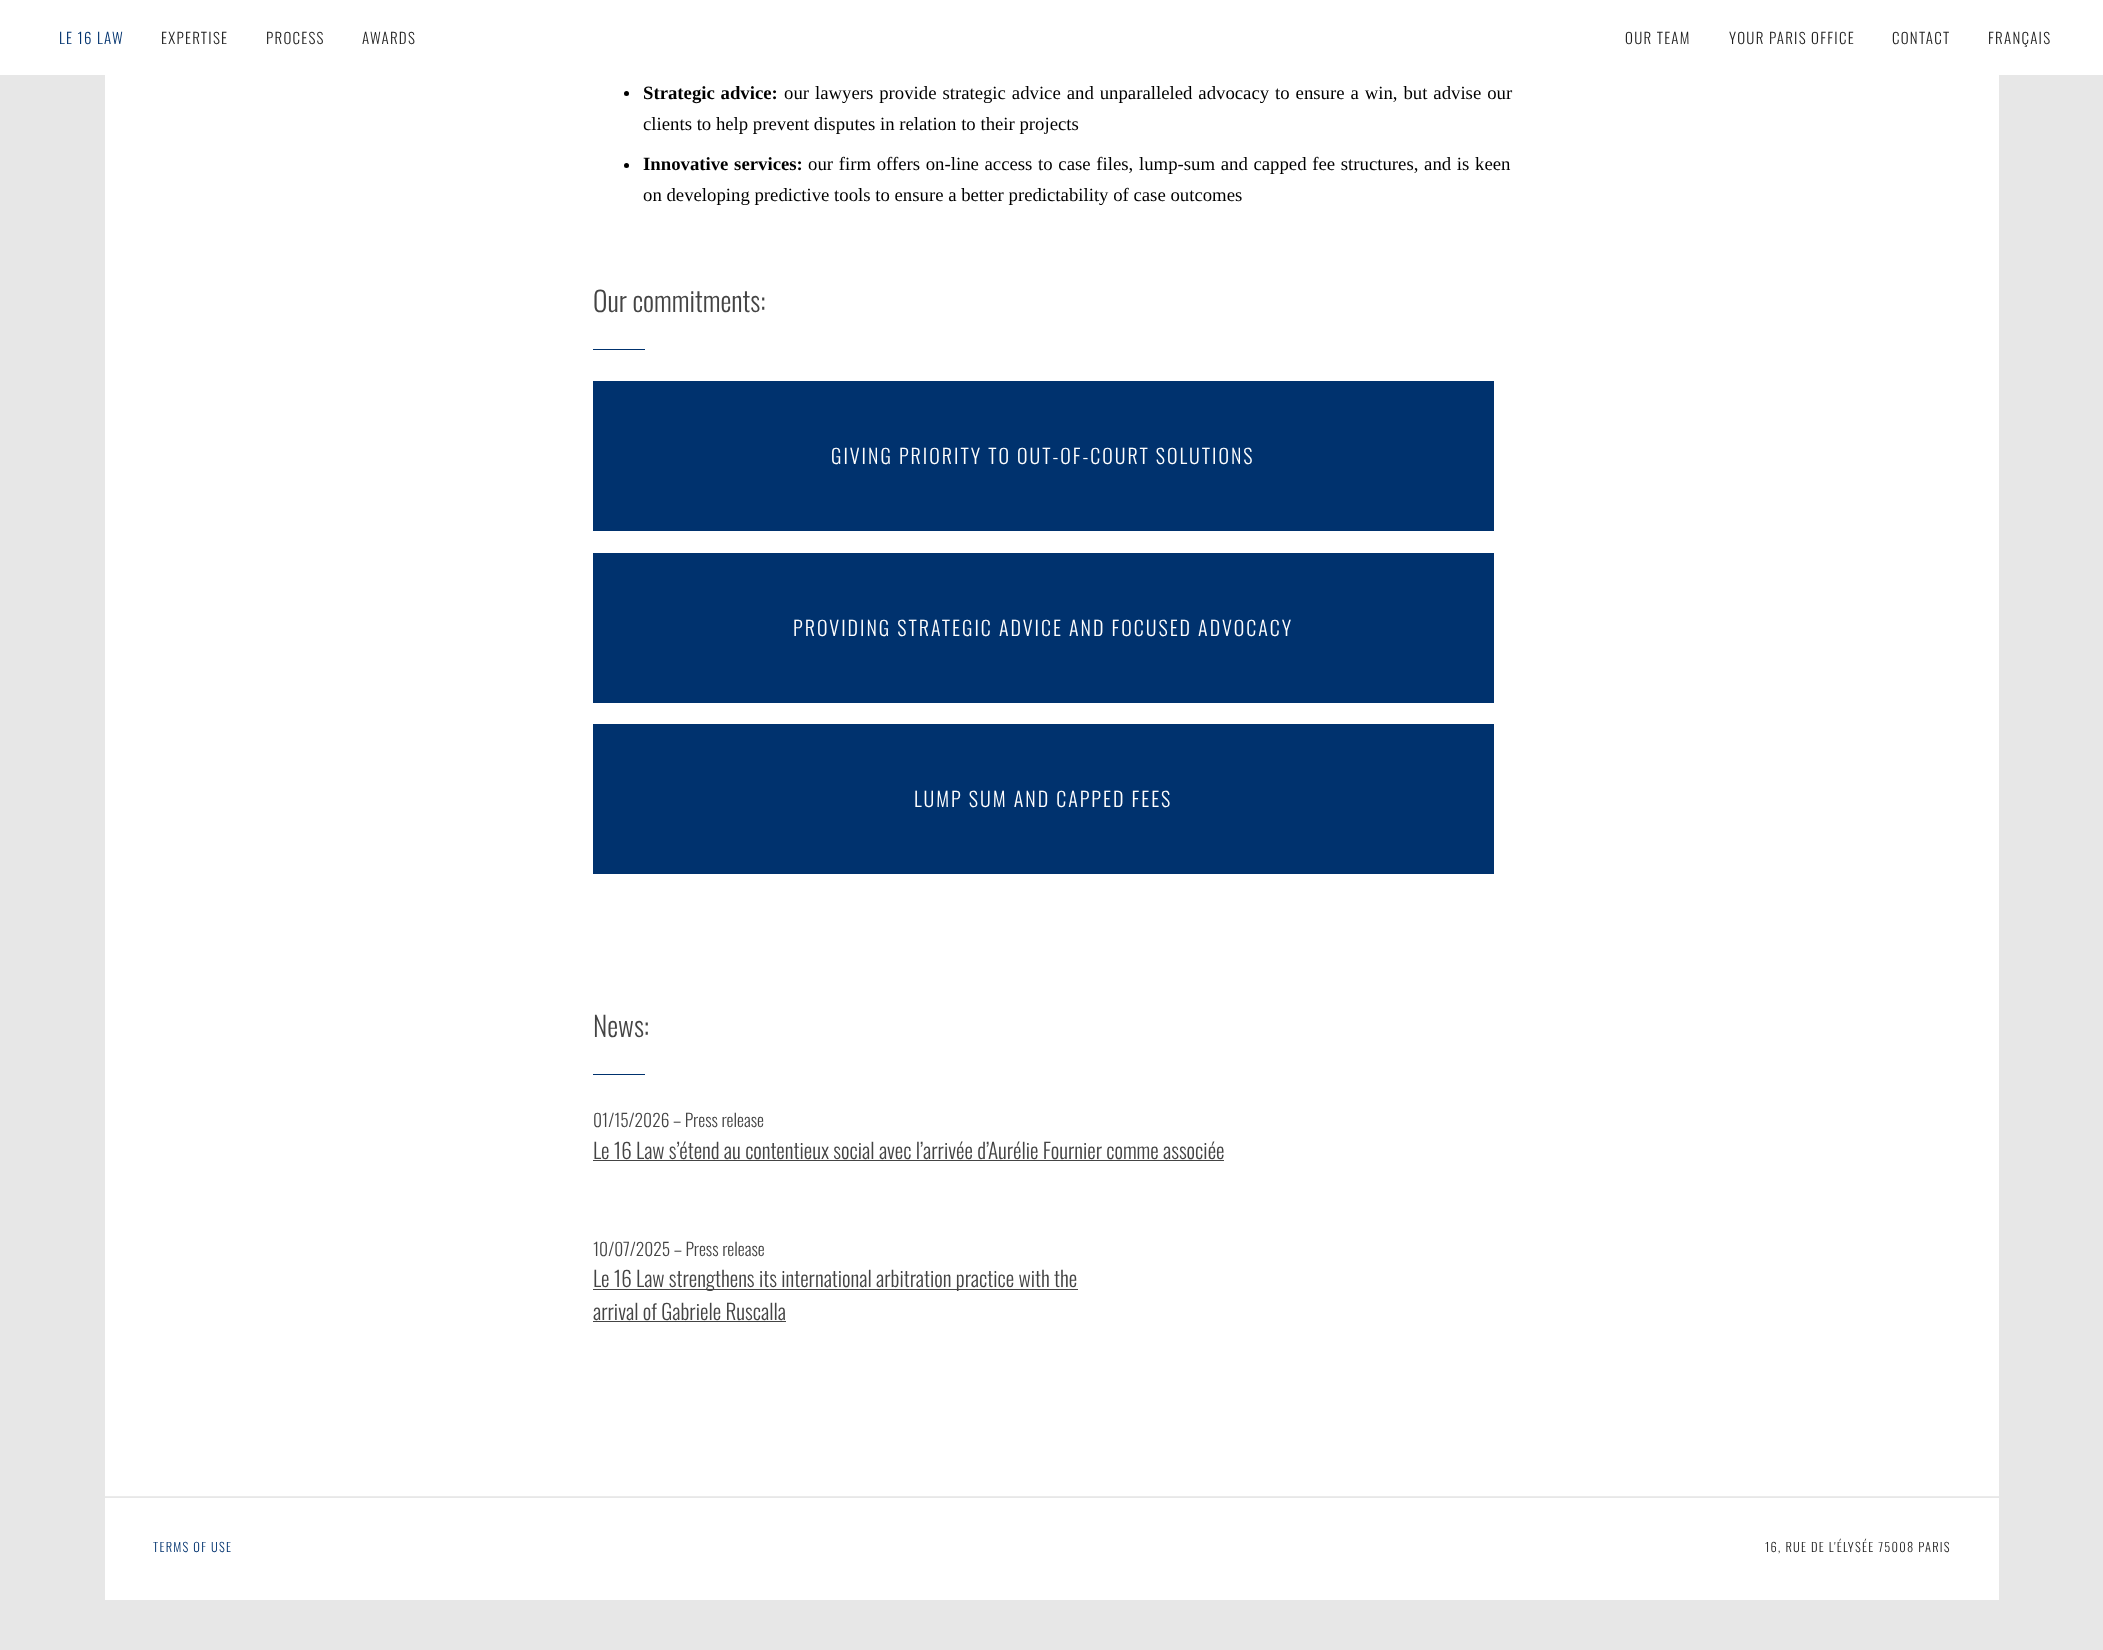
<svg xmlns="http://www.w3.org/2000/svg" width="2103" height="1650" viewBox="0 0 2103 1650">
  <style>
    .t1 { font: 300 15px Oswald; letter-spacing: 1.25px; fill: #00326e; }
    .t2 { font: 300 15px Oswald; letter-spacing: 1.25px; fill: #1d1d1d; }
    .t3 { font: bold 18.75px Liberation Serif; fill: #000; }
    .t4 { font: 18.75px Liberation Serif; fill: #000; }
    .t5 { font: 300 27.5px Oswald; fill: #444; }
    .t6 { font: 300 20px Oswald; letter-spacing: 2px; fill: #fff; }
    .t7 { font: 300 17.5px Oswald; fill: #444; }
    .t8 { font: 300 21.25px Oswald; fill: #444; }
    .t9 { font: 300 12.5px Oswald; letter-spacing: 1.25px; fill: #00326e; }
    .t10 { font: 300 12.5px Oswald; letter-spacing: 1.25px; fill: #1d1d1d; }
  </style>
  <rect width="100%" height="100%" fill="#e7e7e7"/>
  <rect x="0" y="0" width="2103" height="75" fill="#fff"/>
  <text x="59" y="44" class="t1">LE 16 LAW</text>
  <text x="161" y="44" class="t2">EXPERTISE</text>
  <text x="266" y="44" class="t2">PROCESS</text>
  <text x="362" y="44" class="t2">AWARDS</text>
  <text x="1625" y="44" class="t2">OUR TEAM</text>
  <text x="1729" y="44" class="t2">YOUR PARIS OFFICE</text>
  <text x="1892" y="44" class="t2">CONTACT</text>
  <text x="1988" y="44" class="t2">FRANÇAIS</text>
  <rect x="105" y="75" width="1894" height="1421" fill="#fff"/>
  <circle cx="626.5" cy="93.5" r="2.5" fill="#000"/>
  <text x="643" y="99" word-spacing="1" class="t3">Strategic advice:</text>
  <text x="784" y="99" word-spacing="1.25" class="t4">our lawyers provide strategic advice and unparalleled advocacy to ensure a win, but advise our</text>
  <text x="643" y="130" class="t4">clients to help prevent disputes in relation to their projects</text>
  <circle cx="626.5" cy="165.5" r="2.5" fill="#000"/>
  <text x="643" y="170" word-spacing="1" class="t3">Innovative services:</text>
  <text x="808" y="170" word-spacing="1" class="t4">our firm offers on-line access to case files, lump-sum and capped fee structures, and is keen</text>
  <text x="643" y="201" class="t4">on developing predictive tools to ensure a better predictability of case outcomes</text>
  <text x="593" y="312" class="t5">Our commitments:</text>
  <rect x="593" y="349" width="52" height="1" fill="#00326e"/>
  <rect x="593" y="381" width="901" height="150" fill="#00326e"/>
  <text x="831" y="464" class="t6">GIVING PRIORITY TO OUT-OF-COURT SOLUTIONS</text>
  <rect x="593" y="553" width="901" height="150" fill="#00326e"/>
  <text x="793" y="636" class="t6">PROVIDING STRATEGIC ADVICE AND FOCUSED ADVOCACY</text>
  <rect x="593" y="724" width="901" height="150" fill="#00326e"/>
  <text x="914" y="807" class="t6">LUMP SUM AND CAPPED FEES</text>
  <text x="593" y="1037" class="t5">News:</text>
  <rect x="593" y="1074" width="52" height="1" fill="#00326e"/>
  <text x="593" y="1127" class="t7">01/15/2026 – Press release</text>
  <text x="593" y="1159" class="t8">Le 16 Law s’étend au contentieux social avec l’arrivée d’Aurélie Fournier comme associée</text>
  <rect x="593" y="1160" width="631" height="1" fill="#444"/>
  <text x="593" y="1256" class="t7">10/07/2025 – Press release</text>
  <rect x="593" y="1289" width="485" height="1" fill="#444"/>
  <text x="593" y="1287" class="t8">Le 16 Law strengthens its international arbitration practice with the</text>
  <text x="593" y="1320" class="t8">arrival of Gabriele Ruscalla</text>
  <rect x="593" y="1321" width="193" height="1" fill="#444"/>
  <rect x="105" y="1496" width="1894" height="1" fill="#ebebeb"/>
  <rect x="105" y="1498" width="1894" height="102" fill="#fff"/>
  <text x="153" y="1552" class="t9">TERMS OF USE</text>
  <text x="1765" y="1552" class="t10">16, RUE DE L'ÉLYSÉE 75008 PARIS</text>
</svg>
